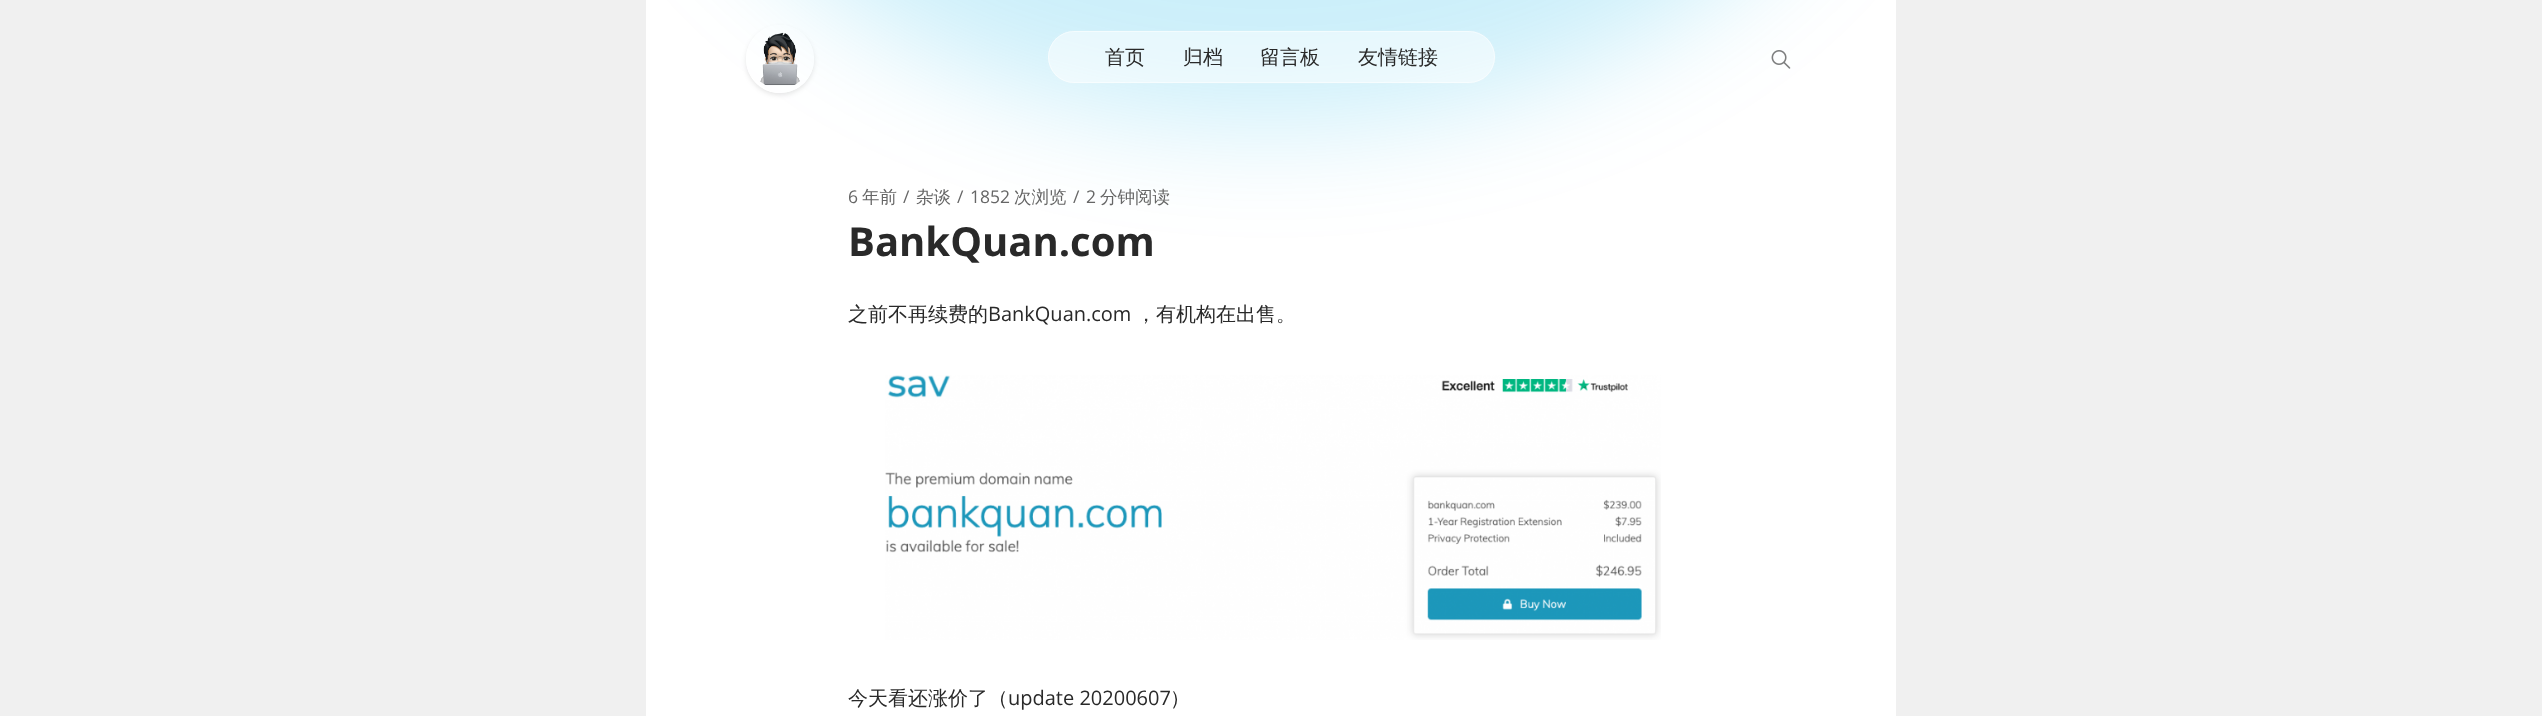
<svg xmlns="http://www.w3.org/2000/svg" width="2542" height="716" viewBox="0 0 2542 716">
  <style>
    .t1 { font: 500 20px WenQuanYi Zen Hei; fill: #292929; }
    .t2 { font: 17.5px Open Sans; fill: #666; }
    .t3 { font: 500 17.5px WenQuanYi Zen Hei; fill: #666; }
    .t4 { font: bold 40px Open Sans; fill: #292929; }
    .t5 { font: 20px Open Sans; fill: #292929; }
  </style>
  <defs>
    <clipPath id="clip1"><path d="M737 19H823V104H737ZM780 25C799 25 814 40 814 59C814 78 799 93 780 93C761 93 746 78 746 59C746 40 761 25 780 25Z" clip-rule="evenodd"/></clipPath>
  </defs>
  <rect width="100%" height="100%" fill="#f0f0f0"/>
  <rect x="646" y="0" width="1250" height="716" fill="#fff"/>
  <g clip-path="url(#clip1)">
    <rect x="746" y="28" width="68" height="67" rx="33.5" fill="#0000001a" filter="blur(2.5px)"/>
  </g>
  <circle cx="780" cy="59" r="32" fill="none" stroke="#fff" stroke-width="4"/>
  <image x="760" y="32" width="40" height="54" href="images/1.png"/>
  <image x="1771" y="50" width="20" height="19" href="images/2.png"/>
  <rect x="646" y="-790" width="1250" height="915" rx="625" fill="#00aee433" filter="blur(55px)"/>
  <rect x="1046.5" y="30.5" width="449" height="53" rx="26.5" fill="none" stroke="#f4f4f51a"/>
  <rect x="1048" y="31" width="447" height="52" rx="26" fill="#ffffff80"/>
  <rect x="1048.5" y="31.5" width="446" height="51" rx="25.5" fill="none" stroke="#ffffff80"/>
  <text x="1105" y="64" class="t1">首页</text>
  <text x="1183" y="64" class="t1">归档</text>
  <text x="1260" y="64" class="t1">留言板</text>
  <text x="1358" y="64" class="t1">友情链接</text>
  <text x="848" y="203" class="t2">6</text>
  <text x="862" y="203" class="t3">年前</text>
  <text x="903" y="203" class="t2">/</text>
  <text x="916" y="203" class="t3">杂谈</text>
  <text x="957" y="203" class="t2">/</text>
  <text x="970" y="203" class="t2">1852</text>
  <text x="1014" y="203" class="t3">次浏览</text>
  <text x="1073" y="203" class="t2">/</text>
  <text x="1086" y="203" class="t2">2</text>
  <text x="1100" y="203" class="t3">分钟阅读</text>
  <text x="848" y="256" class="t4">BankQuan.com</text>
  <text x="848" y="321" class="t1">之前不再续费的</text>
  <text x="988" y="321" class="t5">BankQuan.com</text>
  <text x="1136" y="321" class="t1">，有机构在出售。</text>
  <image x="885" y="375" width="776" height="265" href="images/3.png"/>
  <text x="848" y="705" class="t1">今天看还涨价了（</text>
  <text x="1008" y="705" class="t5">update 20200607</text>
  <text x="1170" y="705" class="t1">）</text>
</svg>
